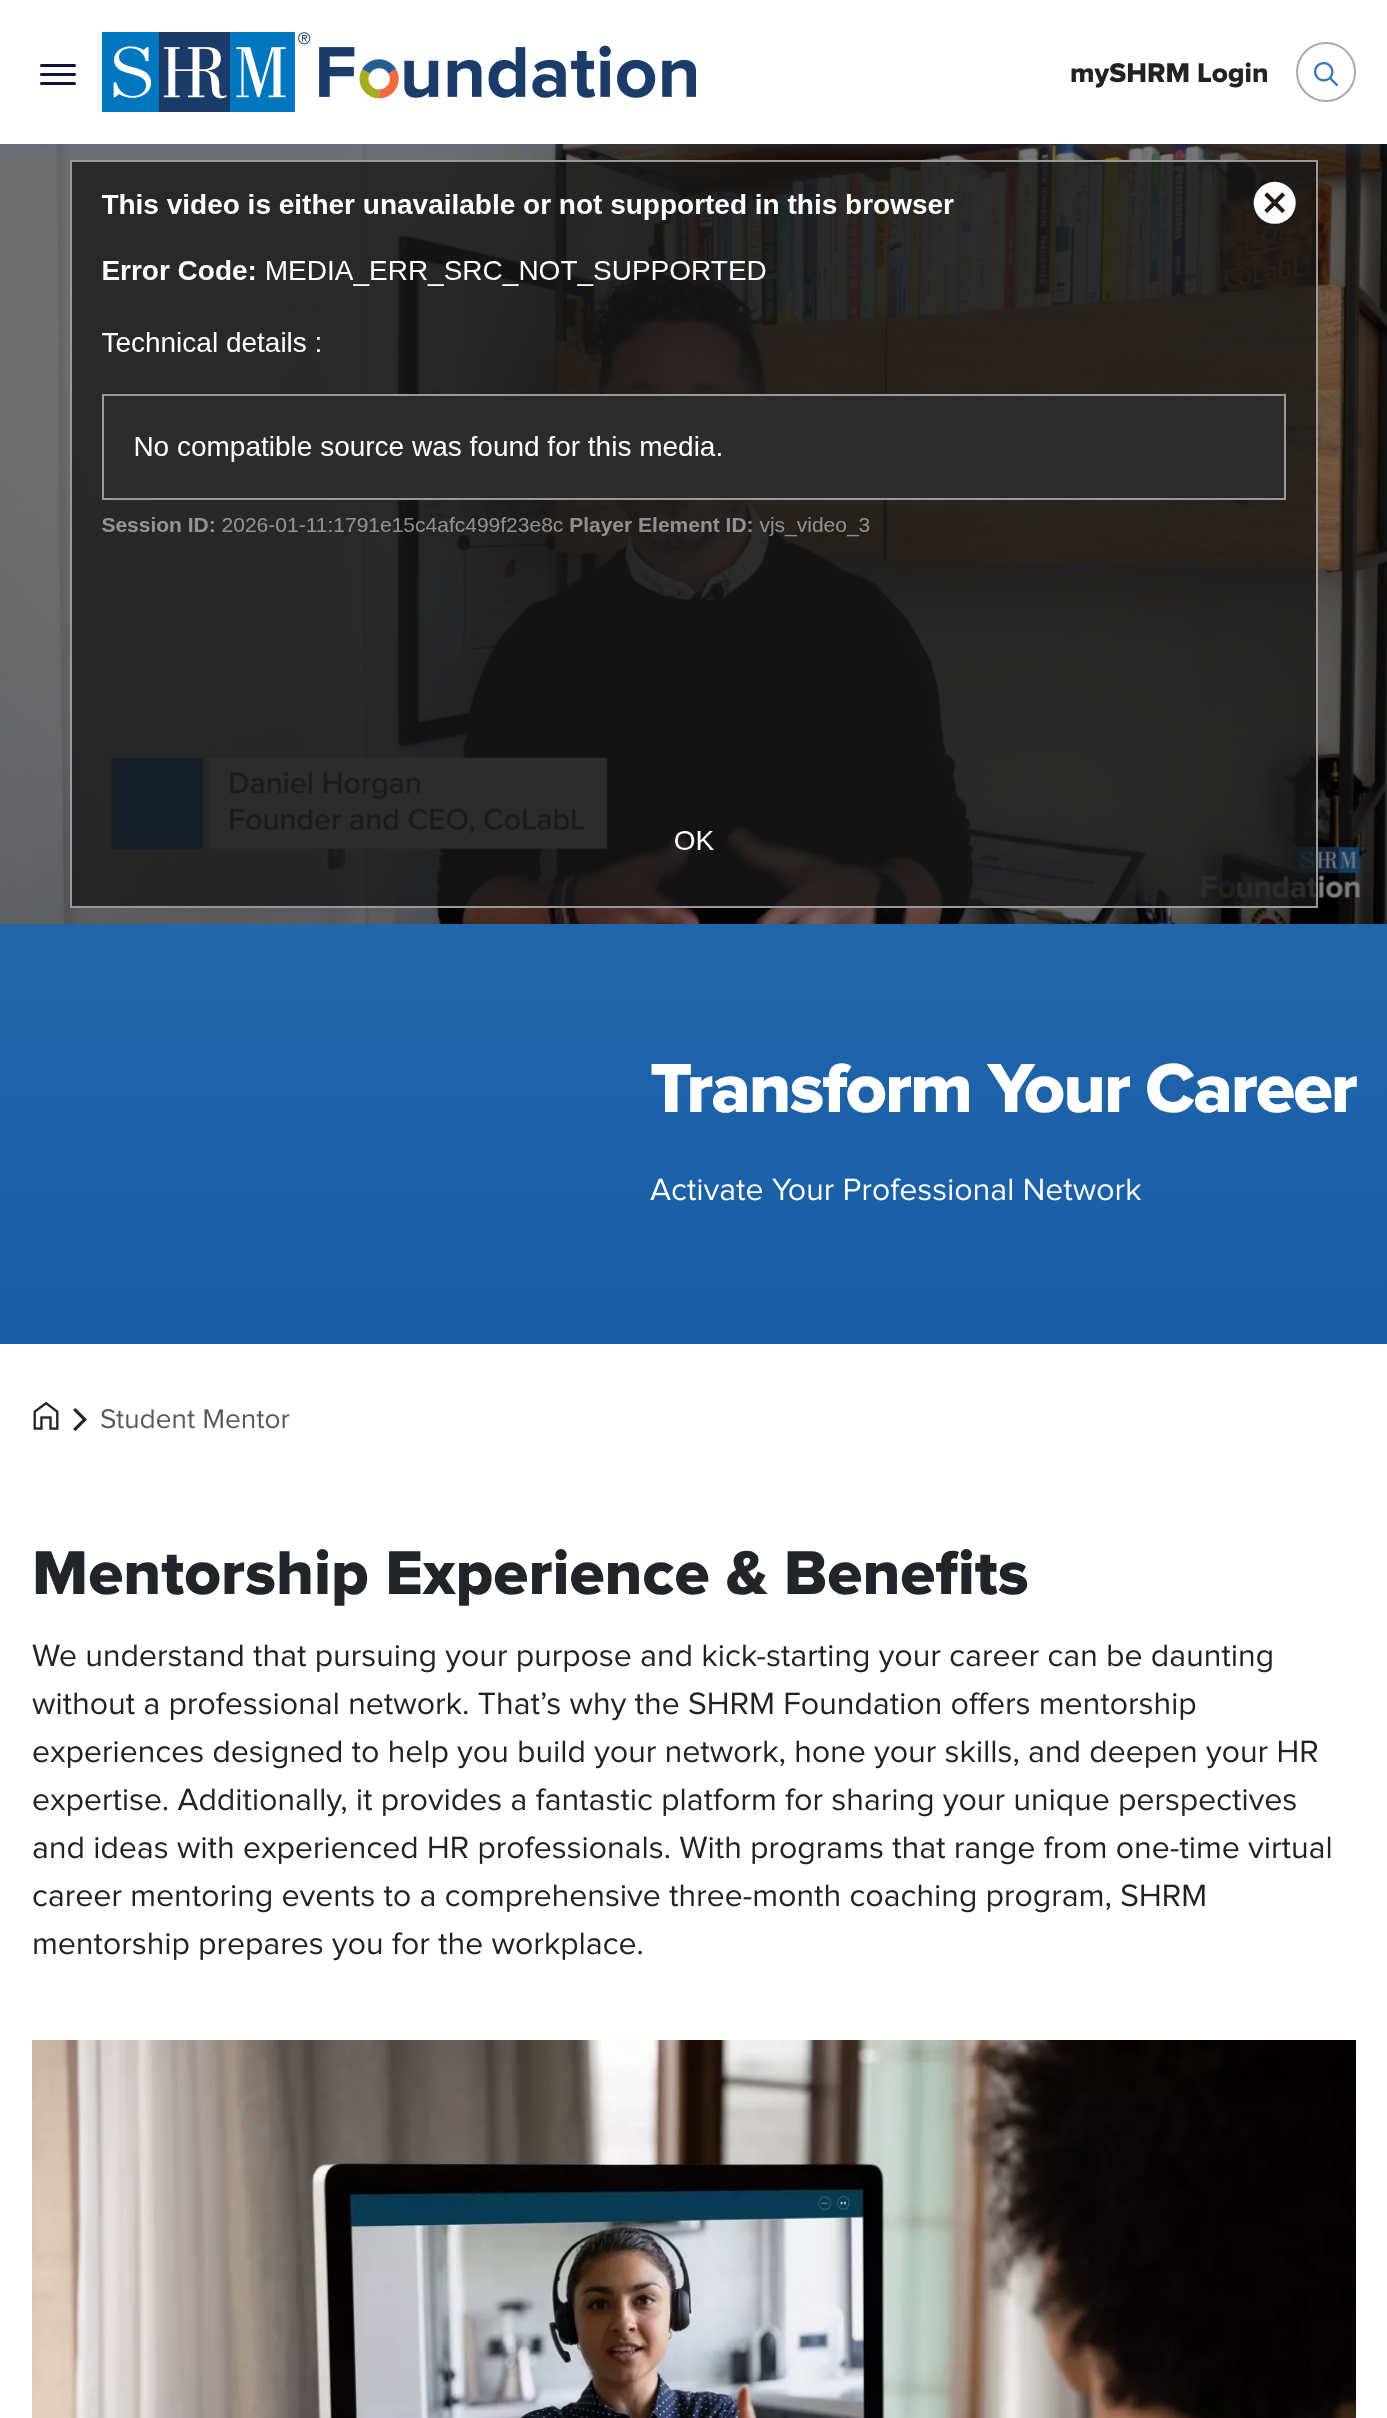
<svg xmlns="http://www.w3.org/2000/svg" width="1387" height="2418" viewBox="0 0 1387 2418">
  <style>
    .t1 { font: 800 28px Proxima Nova; fill: #222; }
    .t2 { font: 800 72px Proxima Nova; letter-spacing: -2px; fill: #fff; }
    .t3 { font: 800 64px Proxima Nova; fill: #212529; }
  </style>
  <defs>
    <clipPath id="clip1"><rect x="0" y="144" width="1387" height="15"/></clipPath>
    <linearGradient id="g1" gradientUnits="userSpaceOnUse" x1="694" y1="144" x2="694" y2="1344"><stop offset="0" stop-color="#3375b8"/><stop offset="1" stop-color="#185ea5"/></linearGradient>
  </defs>
  <rect width="100%" height="100%" fill="#fff"/>
  <image x="0" y="144" width="1387" height="780" href="images/3.png"/>
  <g clip-path="url(#clip1)">
    <rect x="0" y="4" width="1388" height="144" fill="#3375b83d" filter="blur(8px)"/>
  </g>
  <rect x="40" y="64" width="36" height="3" rx="1.5" fill="#0f133a"/>
  <rect x="40" y="73" width="36" height="3" rx="1.5" fill="#0f133a"/>
  <rect x="40" y="82" width="36" height="3" rx="1.5" fill="#0f133a"/>
  <image x="102" y="32" width="594" height="80" href="images/1.png"/>
  <circle cx="1326" cy="72" r="29" fill="none" stroke="#aaa" stroke-width="2"/>
  <text x="1070" y="82" class="t1">mySHRM Login</text>
  <image x="1314" y="62" width="24" height="24" href="images/2.png"/>
  <rect x="0" y="924" width="1387" height="420" fill="url(#g1)"/>
  <text x="650" y="1112" class="t2">Transform Your Career</text>
  <image x="650" y="1178" width="491" height="23" href="images/4.png"/>
  <image x="33" y="1401" width="26" height="29" href="images/5.png"/>
  <path d="M87 1419.5L75.5 1431L73 1429L82.5 1419.5L73 1410L75.5 1408Z" fill="#212529"/>
  <image x="101" y="1409" width="189" height="20" href="images/6.png"/>
  <text x="32" y="1594" class="t3">Mentorship Experience &amp; Benefits</text>
  <image x="32" y="1644" width="1240" height="29" href="images/7.png"/>
  <image x="32" y="1692" width="1164" height="29" href="images/8.png"/>
  <image x="33" y="1740" width="1285" height="29" href="images/9.png"/>
  <image x="33" y="1788" width="1263" height="29" href="images/10.png"/>
  <image x="33" y="1836" width="1298" height="29" href="images/11.png"/>
  <image x="33" y="1884" width="1172" height="29" href="images/12.png"/>
  <image x="34" y="1932" width="608" height="29" href="images/13.png"/>
  <image x="32" y="2040" width="1324" height="378" href="images/14.png"/>
</svg>
